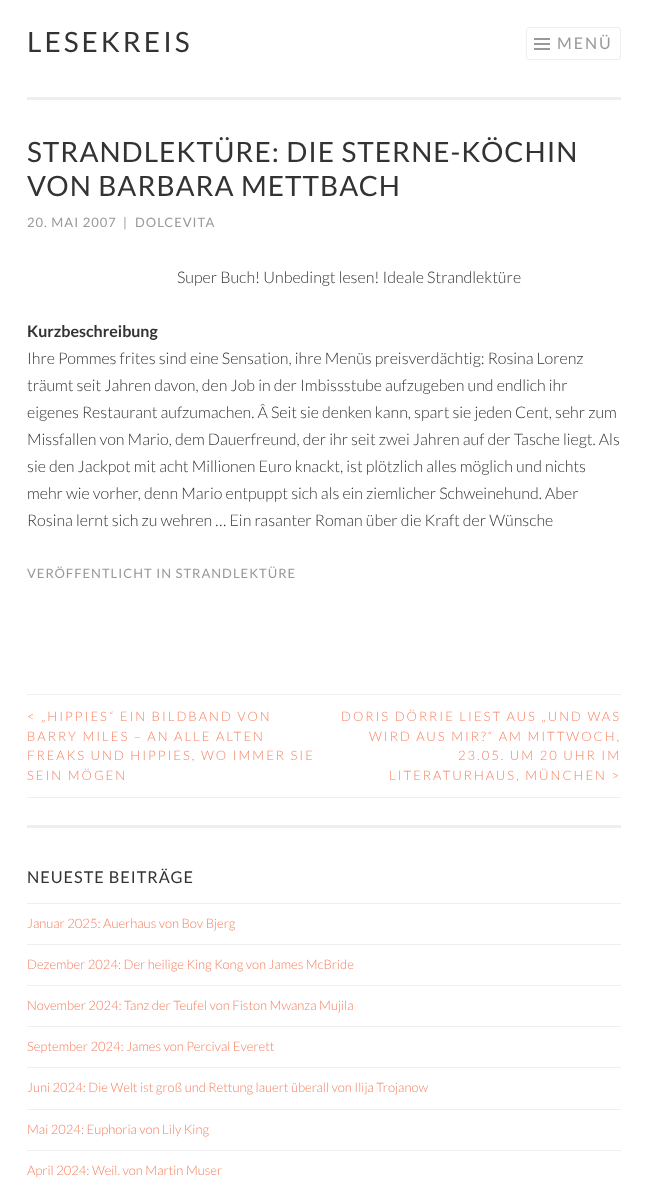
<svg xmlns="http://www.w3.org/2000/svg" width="648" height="1187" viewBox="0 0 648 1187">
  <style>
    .t1 { font: 28px Lato; letter-spacing: 3px; fill: #333; }
    .t2 { font: 16px Lato; letter-spacing: 2px; fill: #999; }
    .t3 { font: 28px Lato; letter-spacing: 1px; fill: #333; }
    .t4 { font: 13px Lato; letter-spacing: 1px; fill: #999; }
    .t5 { font: 300 16px Lato; fill: #333; }
    .t6 { font: bold 16px Lato; fill: #333; }
    .t7 { font: 300 13px Lato; letter-spacing: 2px; fill: #f68060; }
    .t8 { font: 16.25px Lato; letter-spacing: 1px; fill: #333; }
    .t9 { font: 300 13px Lato; fill: #f68060; }
  </style>
  <rect width="100%" height="100%" fill="#fff"/>
  <rect x="27" y="97" width="594" height="3" fill="#eee"/>
  <text x="27" y="52" class="t1">LESEKREIS</text>
  <rect x="526.5" y="27.5" width="94" height="32" rx="2.5" fill="none" stroke="#eee"/>
  <image x="534" y="38" width="16" height="12" href="images/1.png"/>
  <text x="557" y="49" class="t2">MENÜ</text>
  <text x="27" y="162" class="t3">STRANDLEKTÜRE: DIE STERNE-KÖCHIN</text>
  <text x="27" y="196" class="t3">VON BARBARA METTBACH</text>
  <text x="27" y="227" class="t4">20. MAI 2007</text>
  <text x="123" y="227" class="t4">|</text>
  <text x="135" y="227" class="t4">DOLCEVITA</text>
  <text x="177" y="283" class="t5">Super Buch! Unbedingt lesen! Ideale Strandlektüre</text>
  <text x="27" y="337" class="t6">Kurzbeschreibung</text>
  <text x="27" y="364" class="t5">Ihre Pommes frites sind eine Sensation, ihre Menüs preisverdächtig: Rosina Lorenz</text>
  <text x="27" y="391" class="t5">träumt seit Jahren davon, den Job in der Imbissstube aufzugeben und endlich ihr</text>
  <text x="27" y="418" class="t5">eigenes Restaurant aufzumachen. Â Seit sie denken kann, spart sie jeden Cent, sehr zum</text>
  <text x="27" y="445" class="t5">Missfallen von Mario, dem Dauerfreund, der ihr seit zwei Jahren auf der Tasche liegt. Als</text>
  <text x="27" y="472" class="t5">sie den Jackpot mit acht Millionen Euro knackt, ist plötzlich alles möglich und nichts</text>
  <text x="27" y="499" class="t5">mehr wie vorher, denn Mario entpuppt sich als ein ziemlicher Schweinehund. Aber</text>
  <text x="27" y="526" class="t5">Rosina lernt sich zu wehren … Ein rasanter Roman über die Kraft der Wünsche</text>
  <text x="27" y="578" class="t4">VERÖFFENTLICHT IN STRANDLEKTÜRE</text>
  <rect x="27" y="694" width="594" height="1" fill="#eee"/>
  <rect x="27" y="797" width="594" height="1" fill="#eee"/>
  <text x="27" y="721" class="t7">&lt; „HIPPIES“ EIN BILDBAND VON</text>
  <text x="27" y="741" class="t7">BARRY MILES – AN ALLE ALTEN</text>
  <text x="27" y="760" class="t7">FREAKS UND HIPPIES, WO IMMER SIE</text>
  <text x="27" y="780" class="t7">SEIN MÖGEN</text>
  <text x="341" y="721" class="t7">DORIS DÖRRIE LIEST AUS „UND WAS</text>
  <text x="369" y="741" class="t7">WIRD AUS MIR?“ AM MITTWOCH,</text>
  <text x="458" y="760" class="t7">23.05. UM 20 UHR IM</text>
  <text x="389" y="780" class="t7">LITERATURHAUS, MÜNCHEN &gt;</text>
  <rect x="27" y="825" width="594" height="3" fill="#eee"/>
  <text x="27" y="883" class="t8">NEUESTE BEITRÄGE</text>
  <rect x="27" y="903" width="594" height="1" fill="#eee"/>
  <text x="27" y="928" class="t9">Januar 2025: Auerhaus von Bov Bjerg</text>
  <rect x="27" y="944" width="594" height="1" fill="#eee"/>
  <text x="27" y="969" class="t9">Dezember 2024: Der heilige King Kong von James McBride</text>
  <rect x="27" y="985" width="594" height="1" fill="#eee"/>
  <text x="27" y="1010" class="t9">November 2024: Tanz der Teufel von Fiston Mwanza Mujila</text>
  <rect x="27" y="1026" width="594" height="1" fill="#eee"/>
  <text x="27" y="1051" class="t9">September 2024: James von Percival Everett</text>
  <rect x="27" y="1067" width="594" height="1" fill="#eee"/>
  <text x="27" y="1092" class="t9">Juni 2024: Die Welt ist groß und Rettung lauert überall von Ilija Trojanow</text>
  <rect x="27" y="1109" width="594" height="1" fill="#eee"/>
  <text x="27" y="1134" class="t9">Mai 2024: Euphoria von Lily King</text>
  <rect x="27" y="1150" width="594" height="1" fill="#eee"/>
  <text x="27" y="1175" class="t9">April 2024: Weil. von Martin Muser</text>
</svg>
